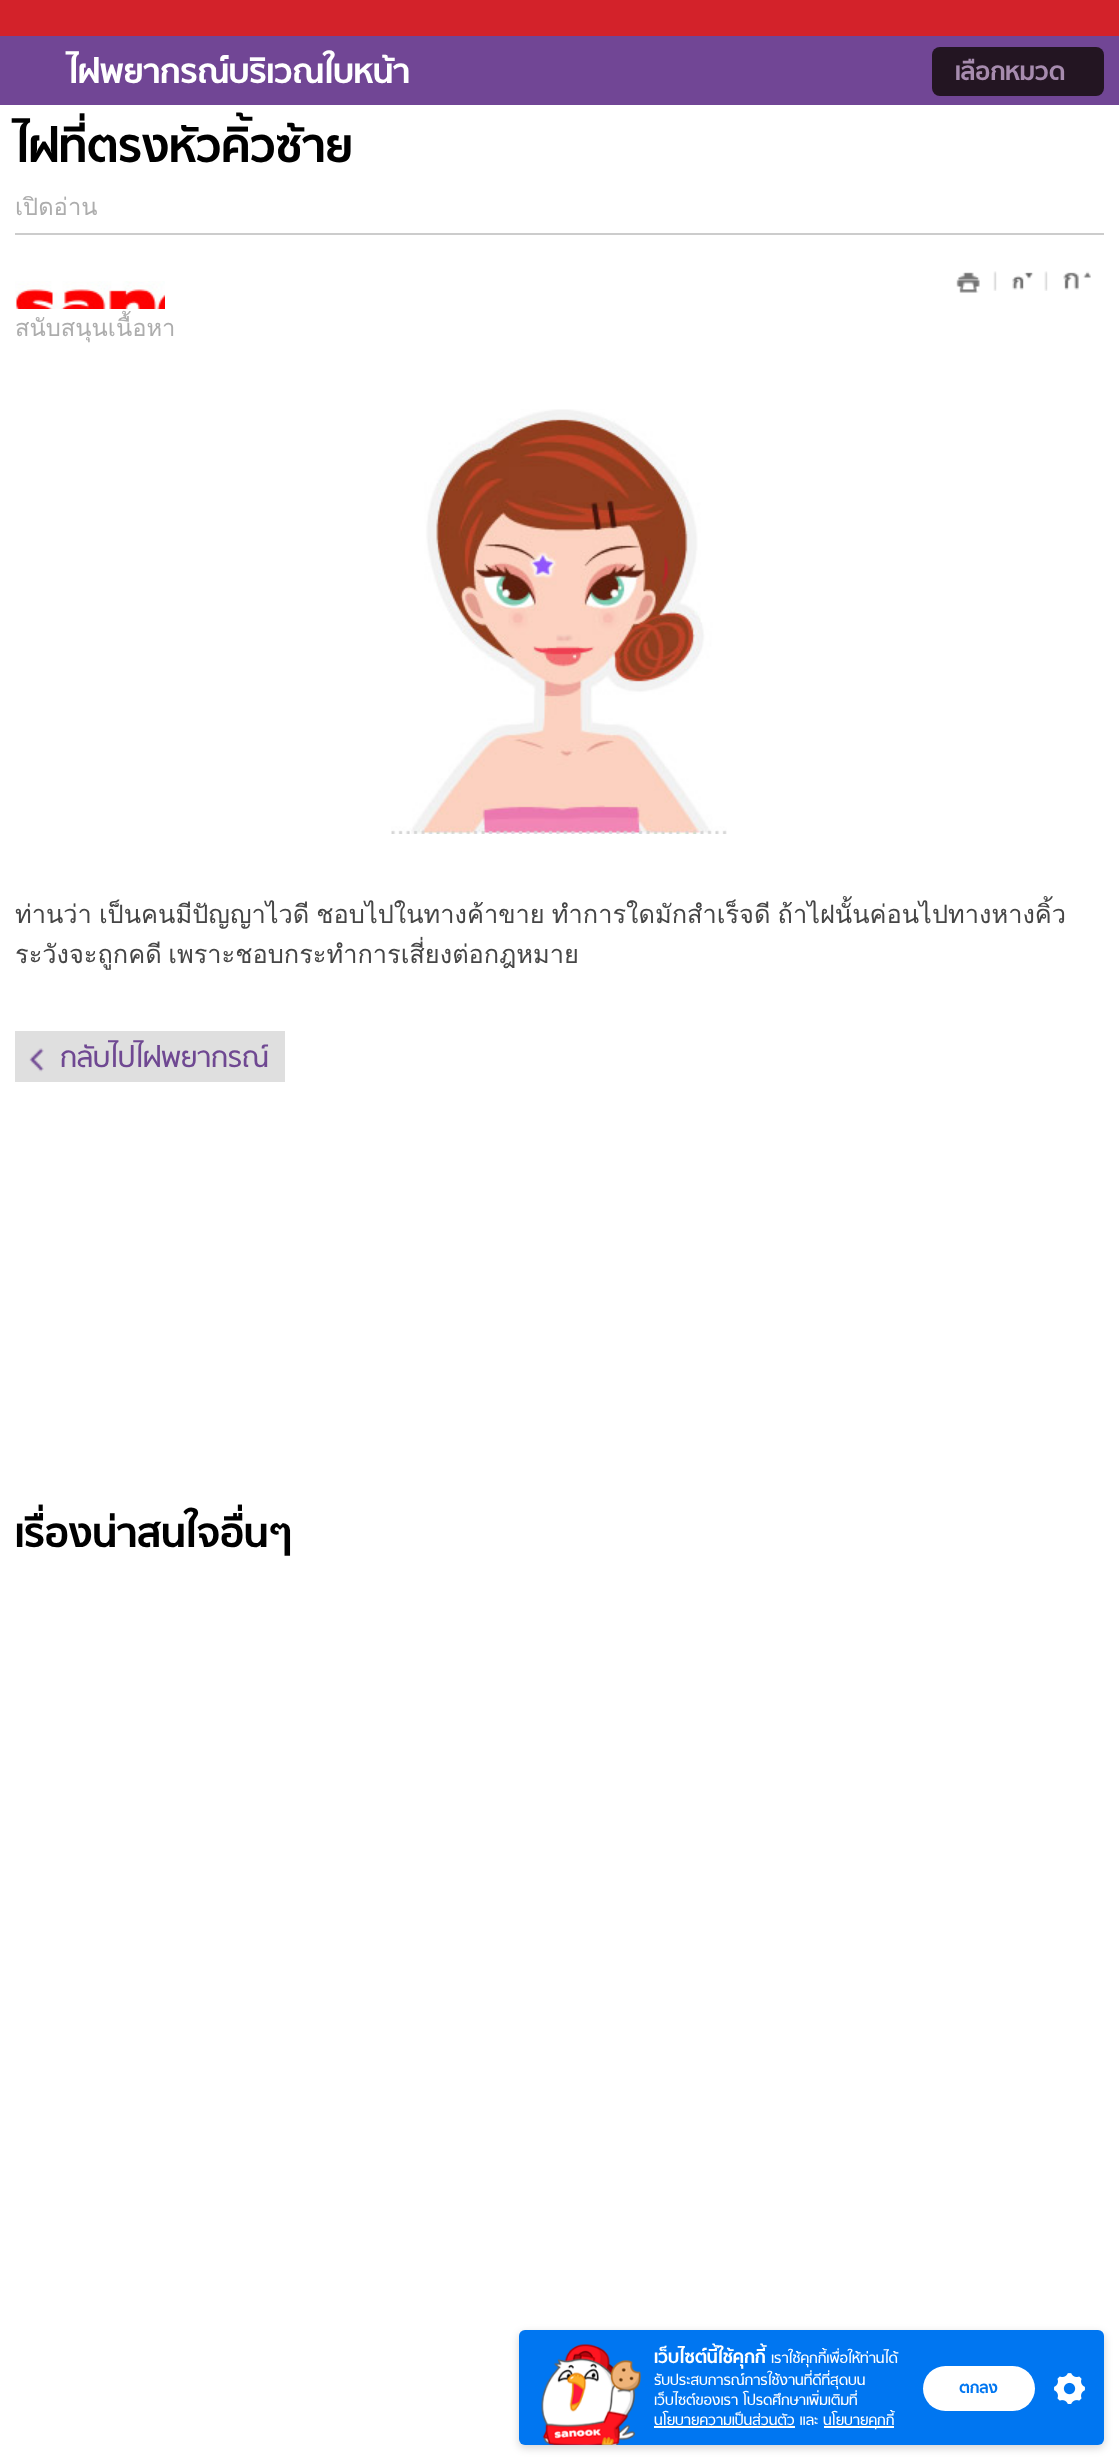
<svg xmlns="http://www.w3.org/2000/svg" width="1119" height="2460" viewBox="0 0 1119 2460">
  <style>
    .t1 { font: bold 38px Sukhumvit; fill: #fff; }
    .t2 { font: bold 28.5px Sukhumvit; fill: #a68bae; }
    .t3 { font: bold 52.5px Sukhumvit; fill: #000; }
    .t4 { font: 23.75px Loma; fill: #adadad; }
    .t5 { font: 25.4px Loma; fill: #464646; }
    .t6 { font: 32px Sukhumvit; fill: #6f4892; }
    .t7 { font: bold 45.75px Sukhumvit; fill: #000; }
    .t8 { font: bold 20.5px 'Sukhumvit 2'; fill: #fff; }
    .t9 { font: 16.5px 'Sukhumvit 2'; fill: #fff; }
    .t10 { font: bold 18px 'Sukhumvit 2'; fill: #0076f1; }
  </style>
  <rect width="100%" height="100%" fill="#fff"/>
  <rect x="0" y="0" width="1119" height="36" fill="#d3222a"/>
  <rect x="0" y="36" width="1119" height="69" fill="#714695"/>
  <text x="68" y="83" class="t1">ไฝพยากรณ์บริเวณใบหน้า</text>
  <rect x="932" y="47" width="172" height="49" rx="8" fill="#231522"/>
  <text x="955" y="80" class="t2">เลือกหมวด</text>
  <text x="15" y="162" class="t3">ไฝที่ตรงหัวคิ้วซ้าย</text>
  <rect x="15" y="233" width="1089" height="2" fill="#ccc"/>
  <text x="15" y="215" class="t4">เปิดอ่าน</text>
  <image x="956" y="272" width="24" height="21" href="images/1.png"/>
  <image x="993" y="271" width="41" height="20" href="images/2.png"/>
  <image x="1044" y="271" width="47" height="20" href="images/3.png"/>
  <image x="15" y="281" width="150" height="28" href="images/4.png"/>
  <text x="15" y="336" class="t4">สนับสนุนเนื้อหา</text>
  <image x="391" y="409" width="336" height="425" href="images/5.png"/>
  <text x="15" y="923" word-spacing="-1.5" class="t5">ท่านว่า เป็นคนมีปัญญาไวดี ชอบไปในทางค้าขาย ทำการใดมักสำเร็จดี ถ้าไฝนั้นค่อนไปทางหางคิ้ว</text>
  <text x="15" y="963" word-spacing="-2" class="t5">ระวังจะถูกคดี เพราะชอบกระทำการเสี่ยงต่อกฎหมาย</text>
  <rect x="15" y="1031" width="270" height="51" fill="#dfdfdf"/>
  <image x="29" y="1048" width="15" height="24" href="images/6.png"/>
  <text x="60" y="1067" class="t6">กลับไปไฝพยากรณ์</text>
  <text x="15" y="1547" class="t7">เรื่องน่าสนใจอื่นๆ</text>
  <rect x="519" y="2333" width="585" height="115" rx="6" fill="#0000002b" filter="blur(4.5px)"/>
  <rect x="519" y="2330" width="585" height="115" rx="6" fill="#0076f1"/>
  <image x="541" y="2344" width="100" height="101" href="images/7.png"/>
  <text x="654" y="2363" class="t8">เว็บไซต์นี้ใช้คุกกี้</text>
  <text x="771" y="2363" class="t9">เราใช้คุกกี้เพื่อให้ท่านได้</text>
  <text x="654" y="2385" class="t9">รับประสบการณ์การใช้งานที่ดีที่สุดบน</text>
  <text x="654" y="2405" class="t9">เว็บไซต์ของเรา โปรดศึกษาเพิ่มเติมที่</text>
  <text x="654" y="2425" class="t9">นโยบายความเป็นส่วนตัว และ</text>
  <rect x="654" y="2426" width="141" height="2" fill="#fff"/>
  <rect x="824" y="2426" width="70" height="2" fill="#fff"/>
  <text x="823" y="2425" class="t9">นโยบายคุกกี้</text>
  <rect x="923" y="2366" width="112" height="45" rx="22.5" fill="#fff"/>
  <text x="959" y="2393" class="t10">ตกลง</text>
  <image x="1054" y="2373" width="31" height="31" href="images/8.png"/>
</svg>
